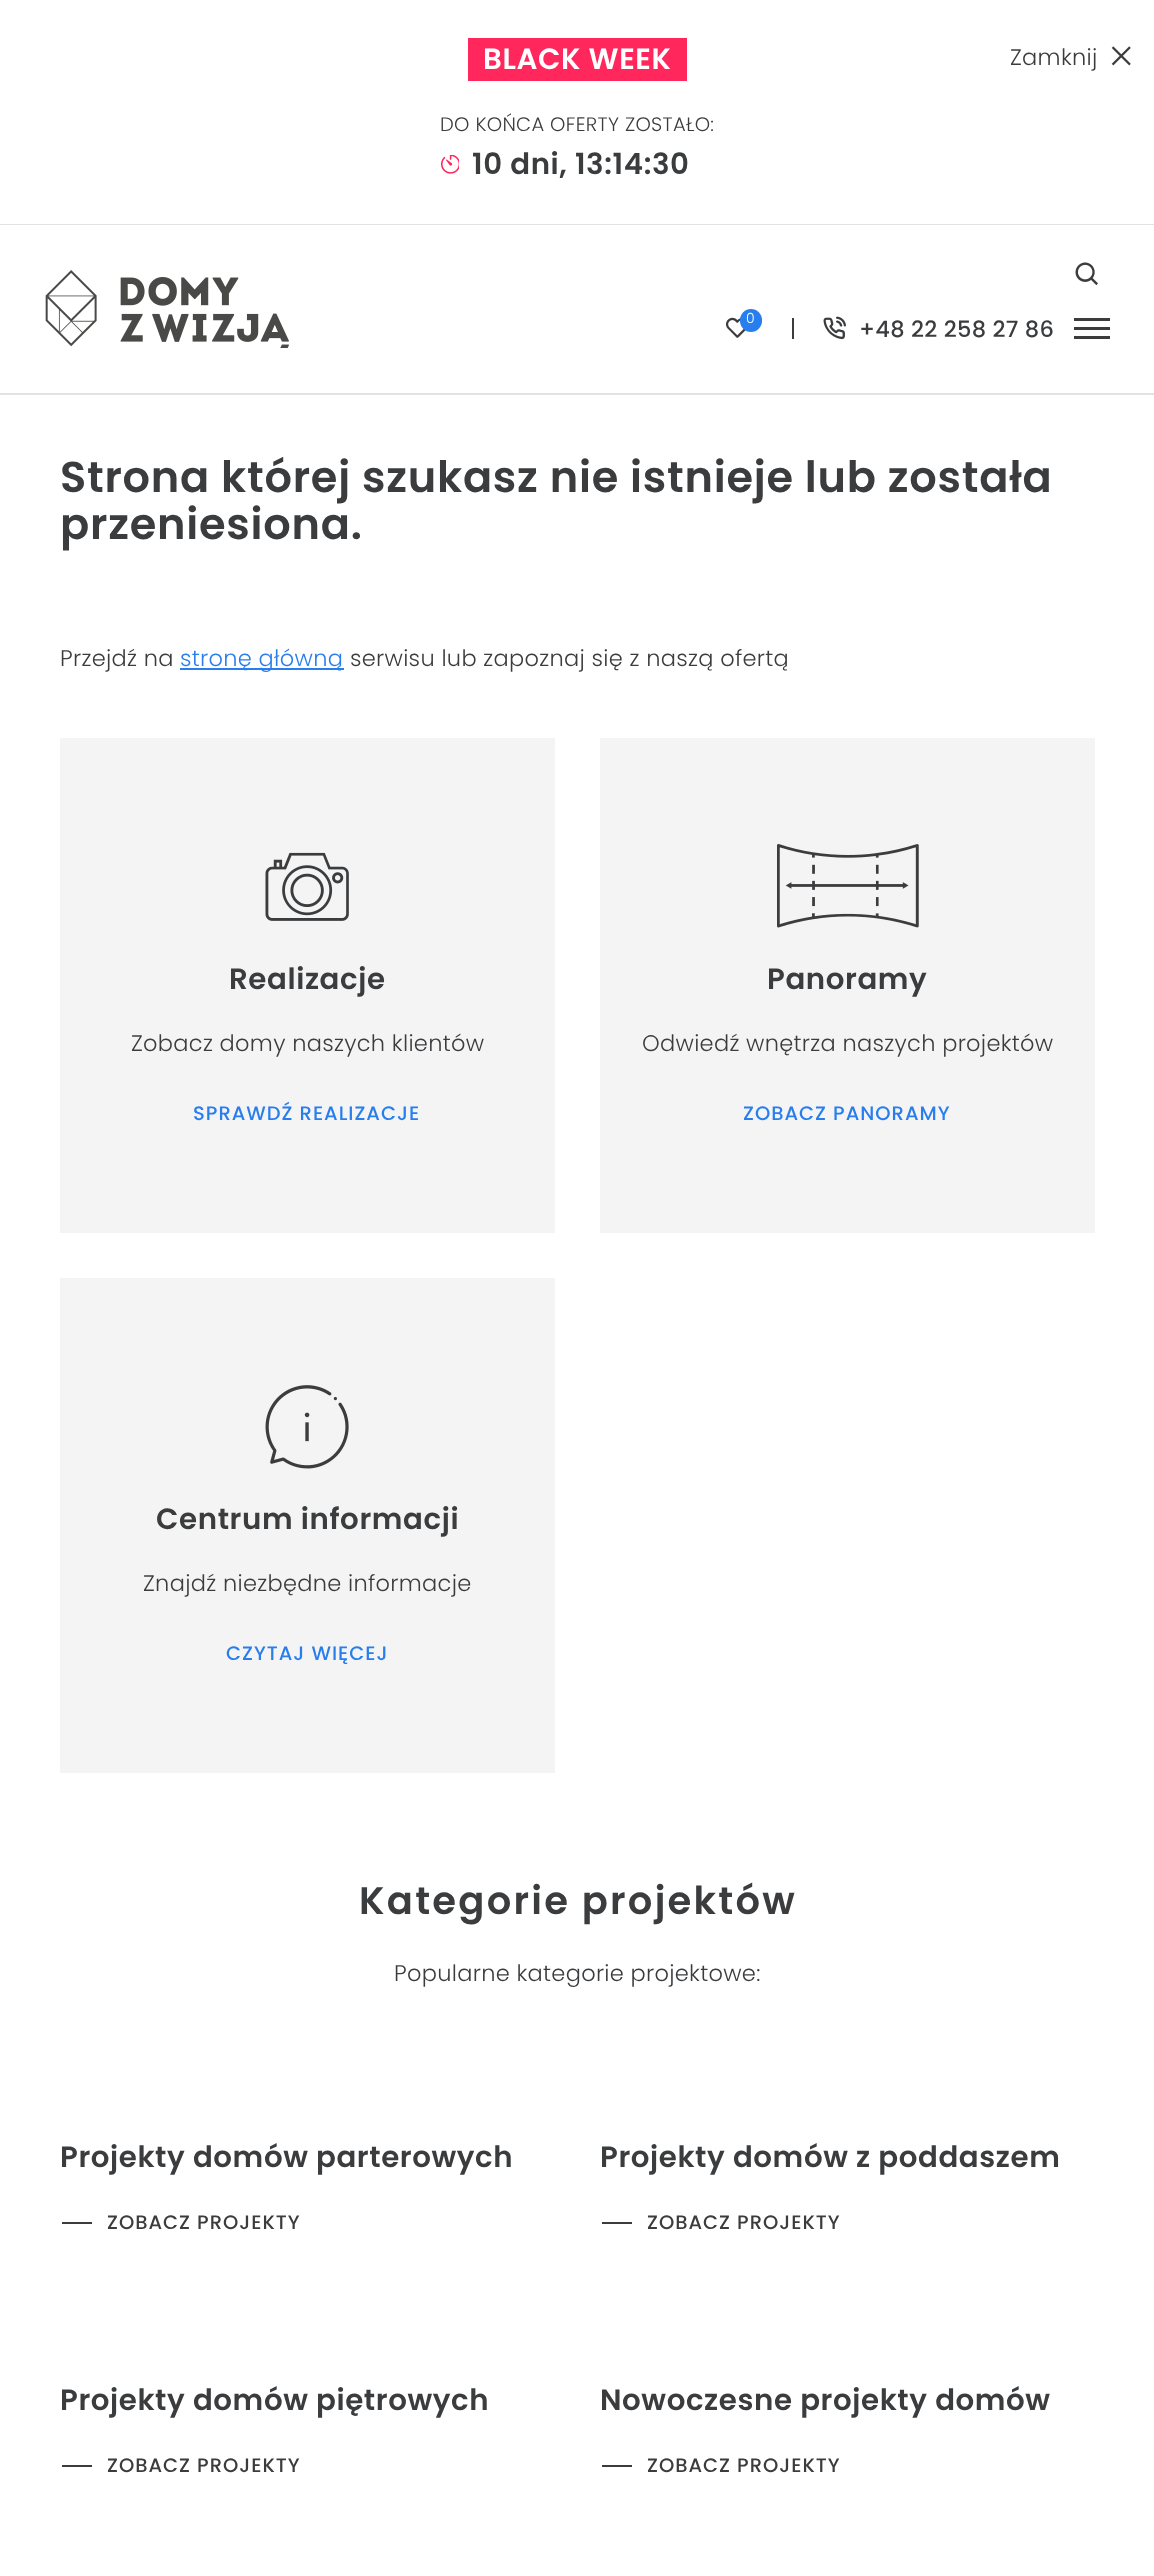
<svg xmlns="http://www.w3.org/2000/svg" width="1154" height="2576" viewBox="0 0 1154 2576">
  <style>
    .t1 { font: 600 29.25px Poppins; letter-spacing: 0.6px; fill: #fff; }
    .t2 { font: 300 22.5px Poppins; letter-spacing: 0.3px; fill: #3b3c3e; }
    .t3 { font: 300 19.5px Poppins; letter-spacing: 0.3px; fill: #3b3c3e; }
    .t4 { font: 600 29.25px Poppins; letter-spacing: 0.6px; fill: #3b3c3e; }
    .t5 { font: 300 14px Poppins; letter-spacing: 0.3px; fill: #fff; }
    .t6 { font: 500 22.5px Poppins; letter-spacing: 0.3px; fill: #3b3c3e; }
    .t7 { font: 600 43.1px Poppins; letter-spacing: 0.75px; fill: #3b3c3e; }
    .t8 { font: 300 22.5px Poppins; letter-spacing: 0.3px; fill: #297eee; }
    .t9 { font: 500 19.5px Poppins; letter-spacing: 1px; fill: #297eee; }
    .t10 { font: 600 38.5px Poppins; letter-spacing: 2.25px; fill: #3b3c3e; }
    .t11 { font: 500 19.5px Poppins; letter-spacing: 1px; fill: #3b3c3e; }
  </style>
  <rect width="100%" height="100%" fill="#fff"/>
  <rect x="0" y="224" width="1154" height="1" fill="#e1e2e2"/>
  <rect x="468" y="38" width="219" height="43" fill="#ff275b"/>
  <text x="483" y="69" class="t1">BLACK WEEK</text>
  <text x="1010" y="65" class="t2">Zamknij</text>
  <image x="1111" y="46" width="20" height="20" href="images/1.png"/>
  <text x="440" y="131" class="t3">DO KOŃCA OFERTY ZOSTAŁO:</text>
  <image x="441" y="155" width="18" height="19" href="images/2.png"/>
  <text x="472" y="174" class="t4">10 dni, 13:14:30</text>
  <image x="45" y="270" width="244" height="78" href="images/3.png"/>
  <image x="726" y="317" width="20" height="21" href="images/4.png"/>
  <rect x="740" y="309" width="22" height="23" rx="11" fill="#297eee"/>
  <text x="746" y="323" class="t5">0</text>
  <rect x="792" y="318" width="2" height="21" fill="#3b3c3e"/>
  <image x="823" y="316" width="23" height="24" href="images/5.png"/>
  <text x="859" y="337" class="t6">+48 22 258 27 86</text>
  <rect x="1074" y="318" width="36" height="3" fill="#3b3c3e"/>
  <rect x="1074" y="327" width="36" height="3" fill="#3b3c3e"/>
  <rect x="1074" y="336" width="36" height="3" fill="#3b3c3e"/>
  <image x="1075" y="262" width="23" height="24" href="images/6.png"/>
  <rect x="0" y="393" width="1154" height="2" fill="#e1e2e2"/>
  <text x="60" y="492" class="t7">Strona której szukasz nie istnieje lub została</text>
  <text x="60" y="539" class="t7">przeniesiona.</text>
  <text x="60" y="666" class="t2">Przejdź na</text>
  <rect x="180" y="668" width="164" height="2" fill="#297eee"/>
  <text x="180" y="666" class="t8">stronę główną</text>
  <text x="350" y="666" class="t2">serwisu lub zapoznaj się z naszą ofertą</text>
  <rect x="60" y="738" width="495" height="495" fill="#f4f4f4"/>
  <image x="265" y="852" width="84" height="69" href="images/7.png"/>
  <text x="229" y="989" class="t4">Realizacje</text>
  <text x="131" y="1051" class="t2">Zobacz domy naszych klientów</text>
  <text x="193" y="1120" class="t9">SPRAWDŹ REALIZACJE</text>
  <rect x="600" y="738" width="495" height="495" fill="#f4f4f4"/>
  <image x="777" y="844" width="142" height="84" href="images/8.png"/>
  <text x="767" y="989" class="t4">Panoramy</text>
  <text x="642" y="1051" class="t2">Odwiedź wnętrza naszych projektów</text>
  <text x="743" y="1120" class="t9">ZOBACZ PANORAMY</text>
  <rect x="60" y="1278" width="495" height="495" fill="#f4f4f4"/>
  <image x="265" y="1385" width="84" height="84" href="images/9.png"/>
  <text x="156" y="1529" class="t4">Centrum informacji</text>
  <text x="143" y="1591" class="t2">Znajdź niezbędne informacje</text>
  <text x="226" y="1660" class="t9">CZYTAJ WIĘCEJ</text>
  <text x="359" y="1914" class="t10">Kategorie projektów</text>
  <text x="394" y="1981" class="t2">Popularne kategorie projektowe:</text>
  <text x="60" y="2167" class="t4">Projekty domów parterowych</text>
  <rect x="62" y="2222" width="30" height="2" fill="#3b3c3e"/>
  <text x="107" y="2229" class="t11">ZOBACZ PROJEKTY</text>
  <text x="600" y="2167" class="t4">Projekty domów z poddaszem</text>
  <rect x="602" y="2222" width="30" height="2" fill="#3b3c3e"/>
  <text x="647" y="2229" class="t11">ZOBACZ PROJEKTY</text>
  <text x="60" y="2410" class="t4">Projekty domów piętrowych</text>
  <rect x="62" y="2465" width="30" height="2" fill="#3b3c3e"/>
  <text x="107" y="2472" class="t11">ZOBACZ PROJEKTY</text>
  <text x="600" y="2410" class="t4">Nowoczesne projekty domów</text>
  <rect x="602" y="2465" width="30" height="2" fill="#3b3c3e"/>
  <text x="647" y="2472" class="t11">ZOBACZ PROJEKTY</text>
</svg>
